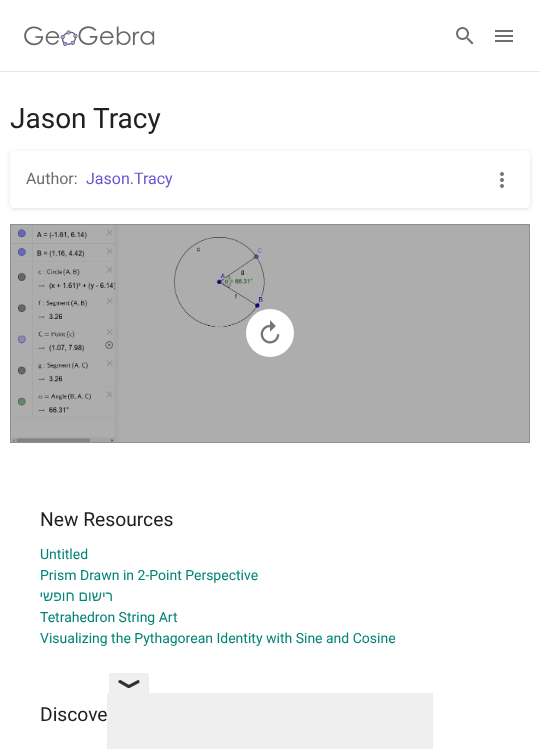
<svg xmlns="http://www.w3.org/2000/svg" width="540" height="749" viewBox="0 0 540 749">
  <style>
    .t1 { font: 28px Roboto; fill: #212121; }
    .t2 { font: 16px Roboto; fill: #6e6d73; }
    .t3 { font: 16px Roboto; fill: #6557d2; }
    .t4 { font: 19.25px Roboto; fill: #212121; }
    .t5 { font: 14px Roboto; fill: #008475; }
    .t6 { font: 14px Liberation Sans; direction: rtl; fill: #008475; }
  </style>
  <rect width="100%" height="100%" fill="#fff"/>
  <rect x="265" y="225" width="264" height="217" fill="#adadad"/>
  <rect x="0" y="71" width="540" height="1" fill="#e6e6eb"/>
  <image x="24" y="26" width="131" height="20" href="images/1.png"/>
  <image x="456" y="27" width="18" height="18" href="images/2.png"/>
  <image x="495" y="30" width="18" height="12" href="images/3.png"/>
  <text x="10" y="128" class="t1">Jason Tracy</text>
  <rect x="10" y="152" width="520" height="57" rx="4" fill="#1c1c1f24" filter="blur(2px)"/>
  <rect x="10" y="151" width="520" height="57" rx="4" fill="#fff"/>
  <text x="26" y="184" class="t2">Author:</text>
  <text x="86" y="184" class="t3">Jason.Tracy</text>
  <image x="500" y="172" width="4" height="16" href="images/4.png"/>
  <image x="11" y="225" width="254" height="217" href="images/5.png"/>
  <rect x="10.5" y="224.5" width="519" height="218" fill="none" stroke="#8f8f8f"/>
  <circle cx="270" cy="333" r="24" fill="#fff"/>
  <image x="260" y="320" width="20" height="24" href="images/6.png"/>
  <text x="40" y="526" class="t4">New Resources</text>
  <text x="40" y="559" class="t5">Untitled</text>
  <text x="40" y="580" class="t5">Prism Drawn in 2-Point Perspective</text>
  <text x="113" y="601" class="t6">רישום חופשי</text>
  <text x="40" y="622" class="t5">Tetrahedron String Art</text>
  <text x="40" y="643" class="t5">Visualizing the Pythagorean Identity with Sine and Cosine</text>
  <text x="40" y="721" class="t4">Discove</text>
  <path d="M111 673H147C148 673 149 674 149 675V693H109V675C109 674 110 673 111 673Z" fill="#efefef"/>
  <path d="M120.5 680L130 685.5C130.5 687 129 688.5 128 688L118.5 682.5C117.5 681 119.5 679.5 120.5 680Z" fill="#313131"/>
  <path d="M128.5 685L138 680C139.5 680 140 682 139 683L129.5 688C128 688 127.5 686 128.5 685Z" fill="#313131"/>
  <rect x="107" y="693" width="326" height="56" fill="#efefef"/>
</svg>
